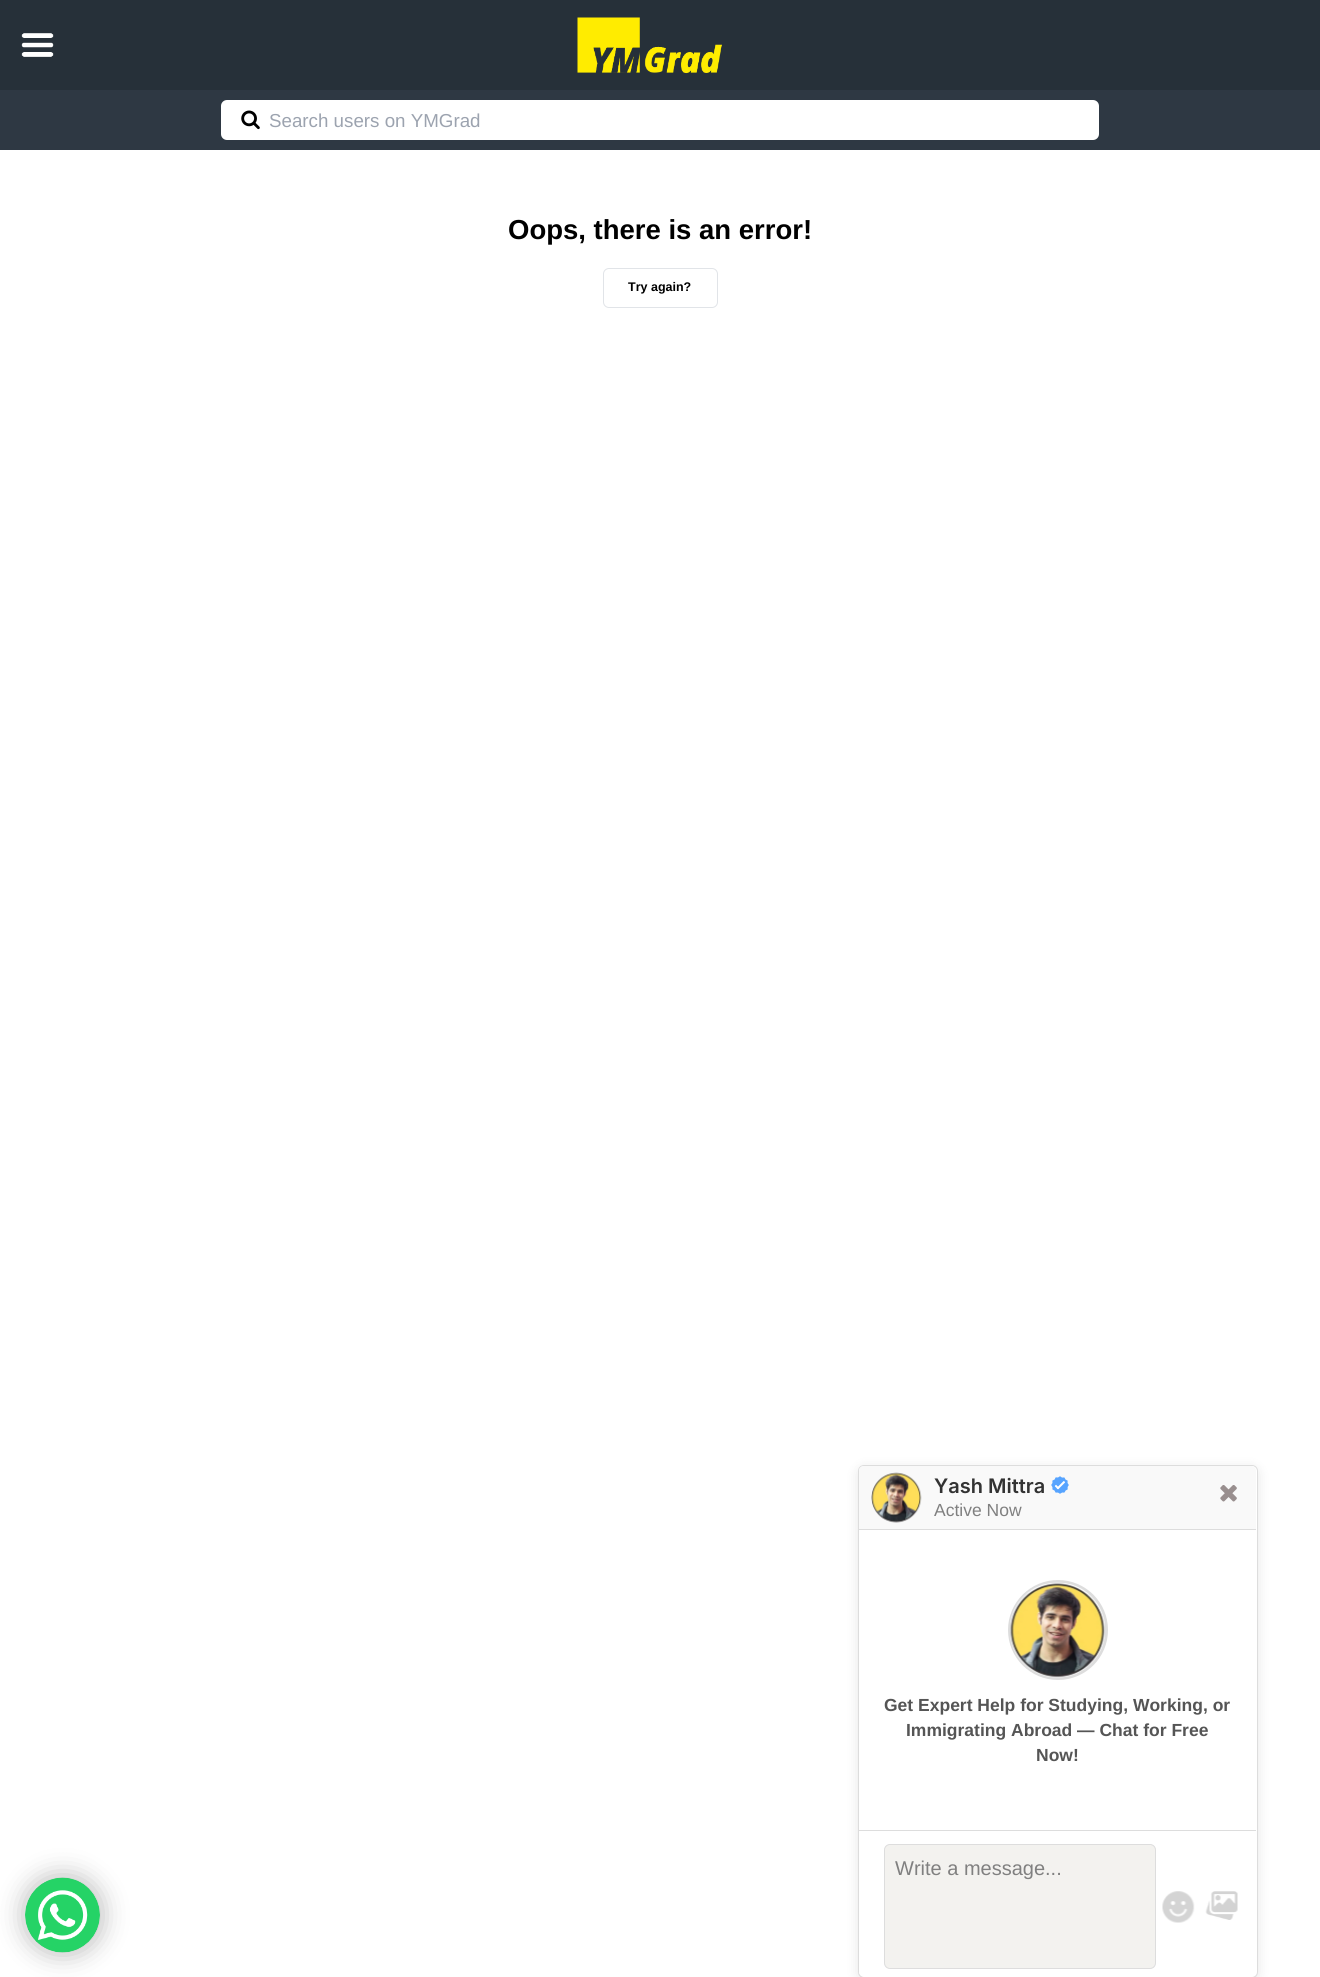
import math
import cairo

surface = cairo.ImageSurface(cairo.FORMAT_RGB24, 1320, 1977)
cr = cairo.Context(surface)
options = cairo.FontOptions()
options.set_hint_metrics(cairo.HINT_METRICS_OFF)
options.set_hint_style(cairo.HINT_STYLE_NONE)
cr.set_font_options(options)
cr.set_miter_limit(4)


def rgb(code):
    cr.set_source_rgb(*(v / 255 for v in bytes.fromhex(code[-6:])))


def rrect(x, y, w, h, r):
    cr.new_sub_path()
    for i, (u, v) in enumerate([(x + w - r, y + h - r), (x + r, y + h - r), (x + r, y + r), (x + w - r, y + r)]):
        cr.arc(u, v, r, i * math.pi / 2, (i + 1) * math.pi / 2)
    cr.close_path()


def soft_shadow(x, y, w, h, r, blur, alpha):
    cr.push_group_with_content(cairo.CONTENT_ALPHA)
    cr.set_operator(cairo.OPERATOR_SOURCE)
    for i in range(15, -16, -2):
        e = blur * i / 6
        if min(w, h) + 2 * e > 0:
            cr.set_source_rgba(0, 0, 0, alpha * math.erfc((i - 1) / 8.5) / 2)
            rrect(x - e, y - e, w + 2 * e, h + 2 * e, max(0, min(r + e + blur * .6, min(w, h) / 2 + e)))
            cr.fill()
    cr.mask(cr.pop_group())


def image(path, x, y, w, h):
    cr.save()
    cr.set_source_surface(cairo.ImageSurface.create_from_png(path), x, y)
    cr.rectangle(x, y, w, h)
    cr.fill()
    cr.restore()


rgb("#ffffff")
cr.paint()
rgb("#263039")
cr.rectangle(0, 0, 1320, 90)
cr.fill()
image("img/1.png", 21, 33, 33, 24)
image("img/2.png", 577, 17, 145, 57)
rgb("#2e3843")
cr.rectangle(0, 90, 1320, 60)
cr.fill()
rgb("#ffffff")
rrect(221, 100, 878, 40, 6)
cr.fill()
image("img/3.png", 241, 110, 19, 20)
rrect(603.5, 268.5, 114, 39, 5.5)
rgb("#e1e4e8")
cr.set_line_width(1)
cr.stroke()
rgb("#000000")
soft_shadow(858, 1468, 400, 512, 6, 6, 0.1)
rgb("#ffffff")
rrect(858.5, 1465.5, 399, 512, 5.5)
cr.fill_preserve()
rgb("#dddddd")
cr.stroke()
rgb("#f9f9f9")
cr.new_path()
cr.move_to(864, 1466)
cr.line_to(1251, 1466)
cr.curve_to(1254, 1466, 1256, 1468, 1256, 1471)
cr.line_to(1256, 1529)
cr.line_to(859, 1529)
cr.line_to(859, 1471)
cr.curve_to(859, 1468, 861, 1466, 864, 1466)
cr.close_path()
cr.fill()
rgb("#dddddd")
cr.rectangle(859, 1529, 397, 1)
cr.fill()
image("img/4.png", 871, 1472, 51, 51)
image("img/5.png", 1051, 1476, 18, 18)
image("img/6.png", 1220, 1485, 17, 17)
cr.arc(1058, 1630, 48.5, 0, 2 * math.pi)
cr.set_line_width(3)
cr.stroke()
image("img/7.png", 1010, 1582, 95, 96)
rgb("#ffffff")
cr.new_path()
cr.move_to(859, 1831)
cr.line_to(1256, 1831)
cr.line_to(1256, 1971)
cr.curve_to(1256, 1974, 1254, 1976, 1251, 1976)
cr.line_to(864, 1976)
cr.curve_to(861, 1976, 859, 1974, 859, 1971)
cr.close_path()
cr.fill()
rgb("#dddddd")
cr.rectangle(859, 1830, 397, 1)
cr.fill()
rgb("#f3f2ef")
rrect(884.5, 1844.5, 271, 124, 5.5)
cr.fill_preserve()
rgb("#dddddd")
cr.set_line_width(1)
cr.stroke()
image("img/8.png", 1162, 1891, 33, 32)
image("img/9.png", 1205, 1891, 33, 29)
rgb("#838383")
soft_shadow(23, 1875, 80, 80, 40, 12.5, 0.52)
image("img/10.png", 25, 1877, 75, 76)
cr.select_font_face("Liberation Sans")
cr.set_font_size(18.75)
rgb("#9ca3af")
cr.move_to(269, 127)
cr.show_text("Search users on YMGrad")
cr.select_font_face("Liberation Sans", cairo.FONT_SLANT_NORMAL, cairo.FONT_WEIGHT_BOLD)
cr.set_font_size(27.5)
rgb("#000000")
cr.move_to(508, 239)
cr.show_text("Oops, there is an error!")
cr.set_font_size(12.5)
cr.move_to(628, 291)
cr.show_text("Try again?")
cr.select_font_face("Inter SemiBold")
cr.set_font_size(20)
rgb("#333333")
cr.move_to(934, 1493)
cr.show_text("Yash Mittra")
cr.select_font_face("Liberation Sans")
cr.set_font_size(17.5)
rgb("#808080")
cr.move_to(934, 1516)
cr.show_text("Active Now")
cr.select_font_face("Liberation Sans", cairo.FONT_SLANT_NORMAL, cairo.FONT_WEIGHT_BOLD)
rgb("#555555")
for x, y, s in [
    (884, 1711, "Get Expert Help for Studying, Working, or"),
    (906, 1736, "Immigrating Abroad — Chat for Free"),
    (1036, 1761, "Now!"),
]:
    cr.move_to(x, y)
    cr.show_text(s)
cr.select_font_face("Liberation Sans")
cr.set_font_size(20)
rgb("#808080")
cr.move_to(895, 1875)
cr.show_text("Write a message...")
surface.write_to_png("page.png")
